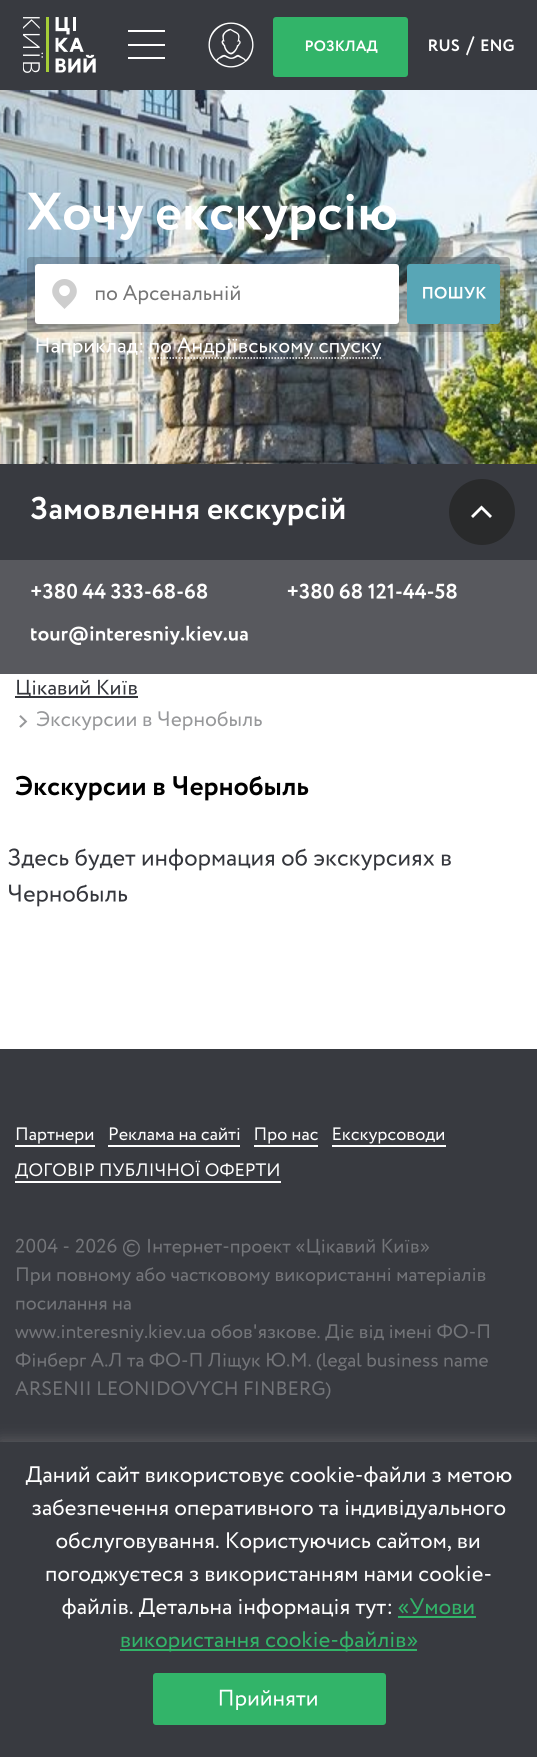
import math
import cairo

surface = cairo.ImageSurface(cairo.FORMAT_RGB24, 537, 1757)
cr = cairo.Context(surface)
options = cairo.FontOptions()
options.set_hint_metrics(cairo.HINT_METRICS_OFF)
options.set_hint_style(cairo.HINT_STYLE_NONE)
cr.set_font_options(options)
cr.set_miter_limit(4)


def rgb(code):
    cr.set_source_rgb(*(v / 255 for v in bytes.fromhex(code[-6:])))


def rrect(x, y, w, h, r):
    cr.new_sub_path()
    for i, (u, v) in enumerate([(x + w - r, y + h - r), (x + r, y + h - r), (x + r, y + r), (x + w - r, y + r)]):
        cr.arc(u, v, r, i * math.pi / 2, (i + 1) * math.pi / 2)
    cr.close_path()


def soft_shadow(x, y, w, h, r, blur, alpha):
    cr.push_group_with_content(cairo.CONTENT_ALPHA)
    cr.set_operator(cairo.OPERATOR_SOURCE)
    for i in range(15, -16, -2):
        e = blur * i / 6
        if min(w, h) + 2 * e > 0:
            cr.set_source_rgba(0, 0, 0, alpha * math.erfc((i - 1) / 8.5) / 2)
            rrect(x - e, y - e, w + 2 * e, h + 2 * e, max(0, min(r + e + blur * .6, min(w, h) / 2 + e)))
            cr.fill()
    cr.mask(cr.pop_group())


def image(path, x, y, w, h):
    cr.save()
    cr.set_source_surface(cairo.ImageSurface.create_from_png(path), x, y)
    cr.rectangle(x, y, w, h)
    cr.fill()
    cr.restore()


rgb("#ffffff")
cr.paint()
rgb("#383a40")
cr.rectangle(0, 0, 537, 90)
cr.fill()
image("img/1.png", 23, 17, 73, 56)
for x, y, w, h, color in [
    (128, 30, 37, 2, "#ffffff"),
    (128, 44, 37, 2, "#ffffff"),
    (128, 57, 37, 2, "#ffffff"),
]:
    rgb(color)
    cr.rectangle(x, y, w, h)
    cr.fill()
image("img/2.png", 208, 22, 46, 46)
rgb("#32b469")
rrect(273, 17, 135, 60, 3)
cr.fill()
image("img/3.png", 305, 40, 73, 13)
image("img/4.png", 429, 39, 31, 13)
rgb("#ffffff")
cr.new_path()
cr.move_to(466, 54.5)
cr.line_to(467.5, 55.5)
cr.line_to(474.5, 37)
cr.line_to(473, 36)
cr.close_path()
cr.fill()
image("img/5.png", 481, 39, 33, 13)
image("img/6.png", 0, 90, 537, 374)
image("img/7.png", 27, 192, 369, 48)
cr.set_source_rgba(0.22, 0.227, 0.251, 0.3)
rrect(27, 257, 483, 75, 3)
cr.fill()
rgb("#ffffff")
rrect(35, 264, 364, 60, 3)
cr.fill()
image("img/8.png", 96, 285, 144, 20)
image("img/9.png", 52, 279, 25, 30)
rgb("#58a6b6")
rrect(407, 264, 93, 60, 3)
cr.fill()
image("img/10.png", 423, 286, 63, 13)
image("img/11.png", 36, 337, 107, 20)
cr.new_path()
cr.move_to(148.5, 358)
cr.line_to(382.5, 358)
rgb("#ffffff")
cr.set_line_width(1.5)
cr.set_dash([1.5, 1.5])
cr.stroke()
image("img/12.png", 150, 337, 232, 20)
rgb("#383a40")
cr.rectangle(0, 464, 537, 96)
cr.fill()
image("img/13.png", 31, 496, 314, 30)
rgb("#292a2b")
cr.arc(482, 512, 33, 0, 2 * math.pi)
cr.fill()
rgb("#ffffff")
cr.set_fill_rule(cairo.FILL_RULE_EVEN_ODD)
cr.new_path()
cr.move_to(481.5, 509.5)
cr.line_to(473, 518)
cr.line_to(471, 516)
cr.line_to(481.5, 505.5)
cr.line_to(492, 516)
cr.line_to(490, 518)
cr.close_path()
cr.fill()
rgb("#58595e")
cr.rectangle(0, 560, 537, 114)
cr.fill()
image("img/14.png", 31, 583, 177, 16)
image("img/15.png", 287, 583, 170, 16)
image("img/16.png", 31, 625, 217, 20)
image("img/17.png", 17, 679, 120, 17)
rgb("#34363c")
cr.rectangle(15, 696, 123, 2)
cr.fill()
image("img/18.png", 19, 715, 9, 13)
image("img/19.png", 36, 711, 226, 20)
image("img/20.png", 15, 775, 294, 26)
image("img/21.png", 8, 848, 443, 23)
image("img/22.png", 9, 884, 119, 23)
rgb("#383a40")
cr.rectangle(0, 1049, 537, 393)
cr.fill()
image("img/23.png", 16, 1127, 78, 17)
rgb("#ffffff")
cr.rectangle(15, 1145, 80, 2)
cr.fill()
image("img/24.png", 109, 1127, 131, 14)
cr.rectangle(108, 1145, 132, 2)
cr.fill()
image("img/25.png", 255, 1127, 63, 17)
cr.rectangle(254, 1145, 64, 2)
cr.fill()
image("img/26.png", 333, 1127, 111, 17)
cr.rectangle(332, 1145, 114, 2)
cr.fill()
image("img/27.png", 15, 1160, 264, 19)
cr.rectangle(15, 1181, 266, 2)
cr.fill()
image("img/28.png", 15, 1238, 54, 15)
image("img/29.png", 75, 1238, 42, 15)
image("img/30.png", 123, 1238, 306, 19)
image("img/31.png", 17, 1267, 469, 18)
image("img/32.png", 16, 1300, 115, 10)
image("img/33.png", 15, 1324, 474, 18)
image("img/34.png", 15, 1352, 473, 19)
image("img/35.png", 15, 1381, 316, 18)
rgb("#acabab")
soft_shadow(0, 1440, 537, 317, 0, 7.5, 0.3)
rgb("#383a40")
cr.rectangle(0, 1442, 537, 315)
cr.fill()
image("img/36.png", 25, 1466, 487, 21)
image("img/37.png", 32, 1499, 474, 21)
image("img/38.png", 56, 1532, 424, 21)
image("img/39.png", 46, 1565, 445, 21)
image("img/40.png", 62, 1598, 329, 21)
image("img/41.png", 398, 1598, 76, 17)
rgb("#32b469")
cr.rectangle(398, 1616, 78, 2)
cr.fill()
cr.rectangle(120, 1649, 297, 2)
cr.fill()
image("img/42.png", 121, 1631, 297, 21)
rrect(153, 1673, 233, 52, 3)
cr.fill()
image("img/43.png", 219, 1689, 98, 21)
surface.write_to_png("page.png")
